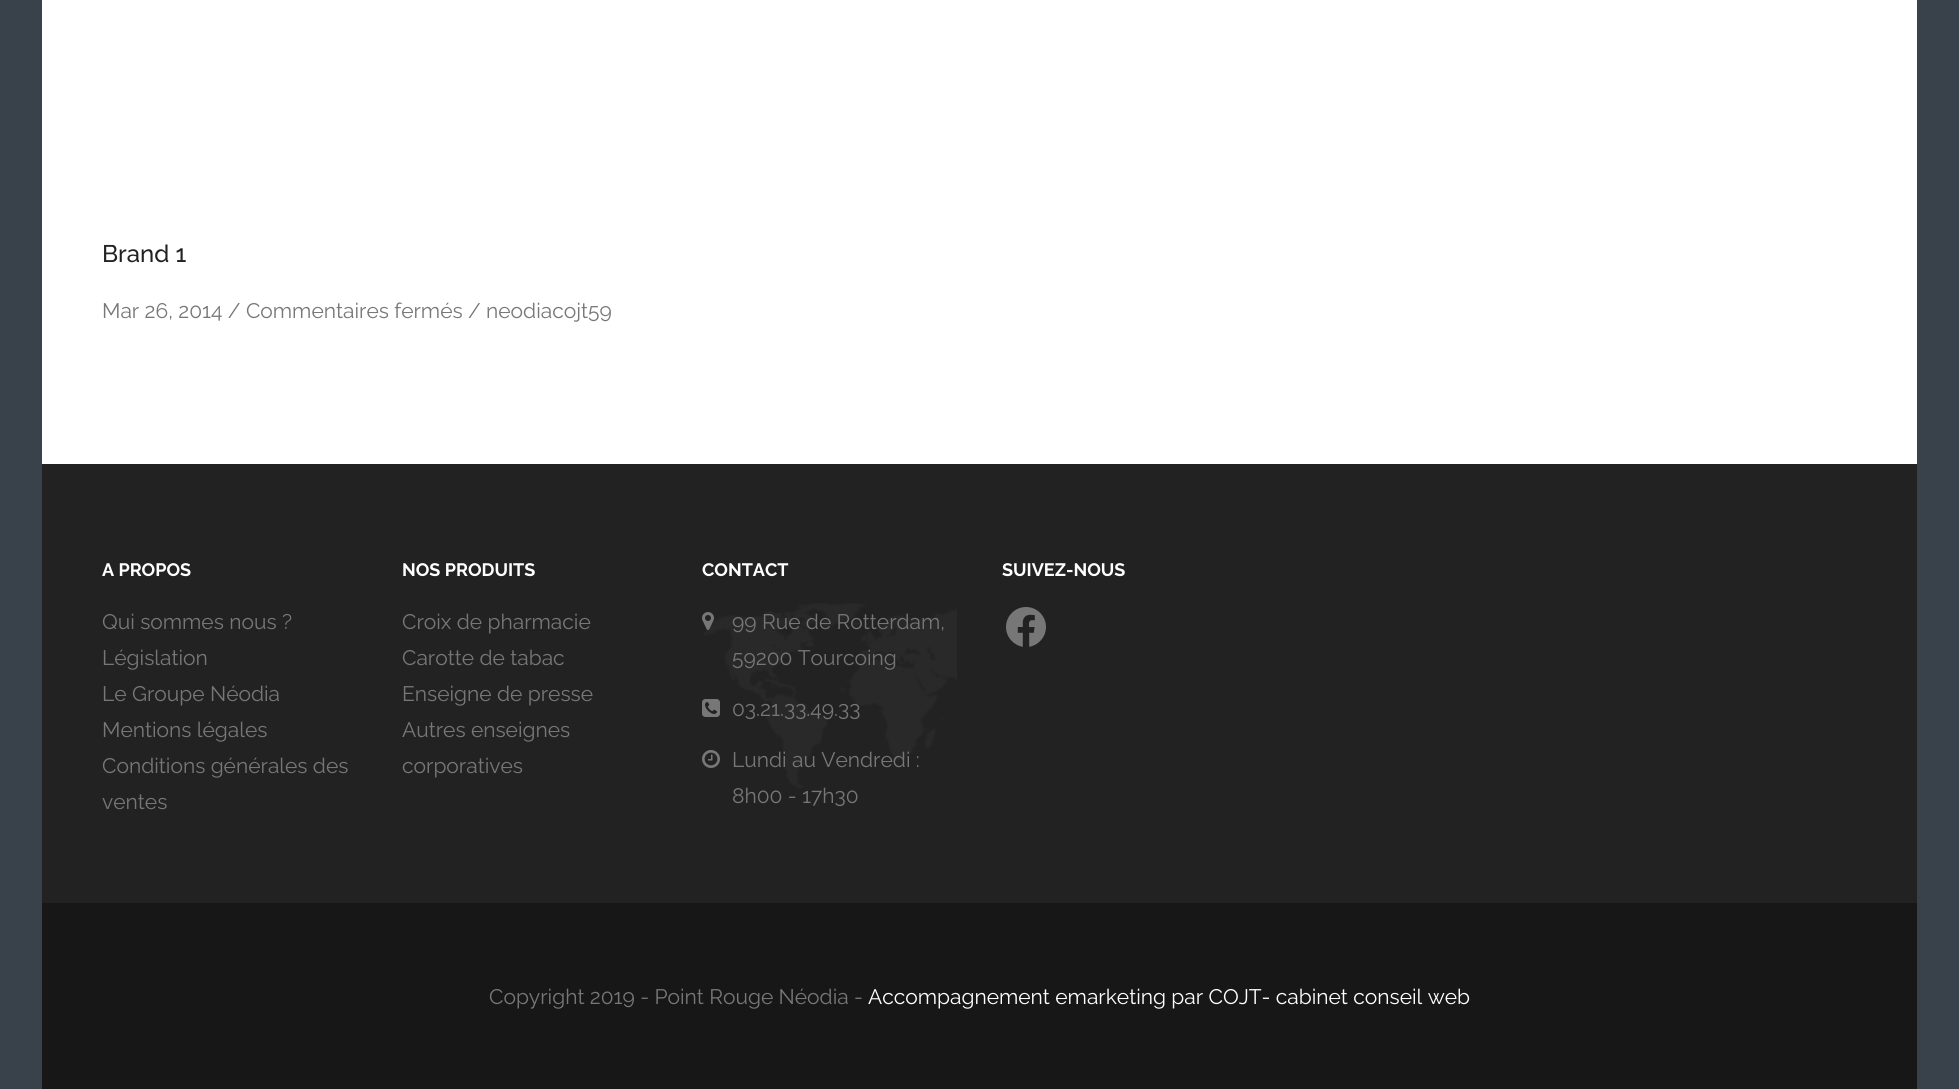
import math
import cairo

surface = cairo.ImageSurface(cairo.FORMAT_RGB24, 1959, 1089)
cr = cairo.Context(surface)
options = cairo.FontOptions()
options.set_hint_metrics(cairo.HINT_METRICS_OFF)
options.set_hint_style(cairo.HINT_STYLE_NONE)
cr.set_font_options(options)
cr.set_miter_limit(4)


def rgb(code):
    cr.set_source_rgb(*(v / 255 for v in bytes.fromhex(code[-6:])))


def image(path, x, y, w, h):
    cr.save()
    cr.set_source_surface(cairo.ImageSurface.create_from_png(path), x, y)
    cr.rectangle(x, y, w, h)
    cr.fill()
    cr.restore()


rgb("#39414a")
cr.paint()
rgb("#ffffff")
cr.rectangle(42, 0, 1875, 464)
cr.fill()
rgb("#222222")
cr.rectangle(42, 464, 1875, 439)
cr.fill()
image("img/1.png", 704, 603, 253, 185)
image("img/2.png", 702, 612, 12, 18)
image("img/3.png", 702, 699, 18, 18)
image("img/4.png", 702, 750, 18, 18)
image("img/5.png", 1006, 607, 40, 40)
rgb("#171717")
cr.rectangle(42, 903, 1875, 186)
cr.fill()
cr.select_font_face("Raleway Medium")
cr.set_font_size(24)
rgb("#222222")
cr.move_to(102, 262)
cr.show_text("Brand 1")
cr.select_font_face("Raleway")
cr.set_font_size(21)
rgb("#777777")
cr.move_to(102, 318)
cr.show_text("Mar 26, 2014 / Commentaires fermés / neodiacojt59")
cr.select_font_face("Raleway", cairo.FONT_SLANT_NORMAL, cairo.FONT_WEIGHT_BOLD)
cr.set_font_size(18)
rgb("#ffffff")
cr.move_to(102, 576)
cr.show_text("A PROPOS")
cr.select_font_face("Raleway")
cr.set_font_size(21)
rgb("#777777")
for x, y, s in [
    (102, 629, "Qui sommes nous ?"),
    (102, 665, "Législation"),
    (102, 701, "Le Groupe Néodia"),
    (102, 737, "Mentions légales"),
    (102, 773, "Conditions générales des"),
    (102, 809, "ventes"),
]:
    cr.move_to(x, y)
    cr.show_text(s)
cr.select_font_face("Raleway", cairo.FONT_SLANT_NORMAL, cairo.FONT_WEIGHT_BOLD)
cr.set_font_size(18)
rgb("#ffffff")
cr.move_to(402, 576)
cr.show_text("NOS PRODUITS")
cr.select_font_face("Raleway")
cr.set_font_size(21)
rgb("#777777")
for x, y, s in [
    (402, 629, "Croix de pharmacie"),
    (402, 665, "Carotte de tabac"),
    (402, 701, "Enseigne de presse"),
    (402, 737, "Autres enseignes"),
    (402, 773, "corporatives"),
]:
    cr.move_to(x, y)
    cr.show_text(s)
cr.select_font_face("Raleway", cairo.FONT_SLANT_NORMAL, cairo.FONT_WEIGHT_BOLD)
cr.set_font_size(18)
rgb("#ffffff")
cr.move_to(702, 576)
cr.show_text("CONTACT")
cr.select_font_face("Raleway")
cr.set_font_size(21)
rgb("#777777")
for x, y, s in [
    (732, 629, "99 Rue de Rotterdam,"),
    (732, 665, "59200 Tourcoing"),
    (732, 716, "03.21.33.49.33"),
    (732, 767, "Lundi au Vendredi :"),
    (732, 803, "8h00 - 17h30"),
]:
    cr.move_to(x, y)
    cr.show_text(s)
cr.select_font_face("Raleway", cairo.FONT_SLANT_NORMAL, cairo.FONT_WEIGHT_BOLD)
cr.set_font_size(18)
rgb("#ffffff")
cr.move_to(1002, 576)
cr.show_text("SUIVEZ-NOUS")
cr.select_font_face("Raleway")
cr.set_font_size(21)
rgb("#777777")
cr.move_to(489, 1004)
cr.show_text("Copyright 2019 - Point Rouge Néodia -")
rgb("#ffffff")
cr.move_to(868, 1004)
cr.show_text("Accompagnement emarketing par COJT- cabinet conseil web")
surface.write_to_png("page.png")
